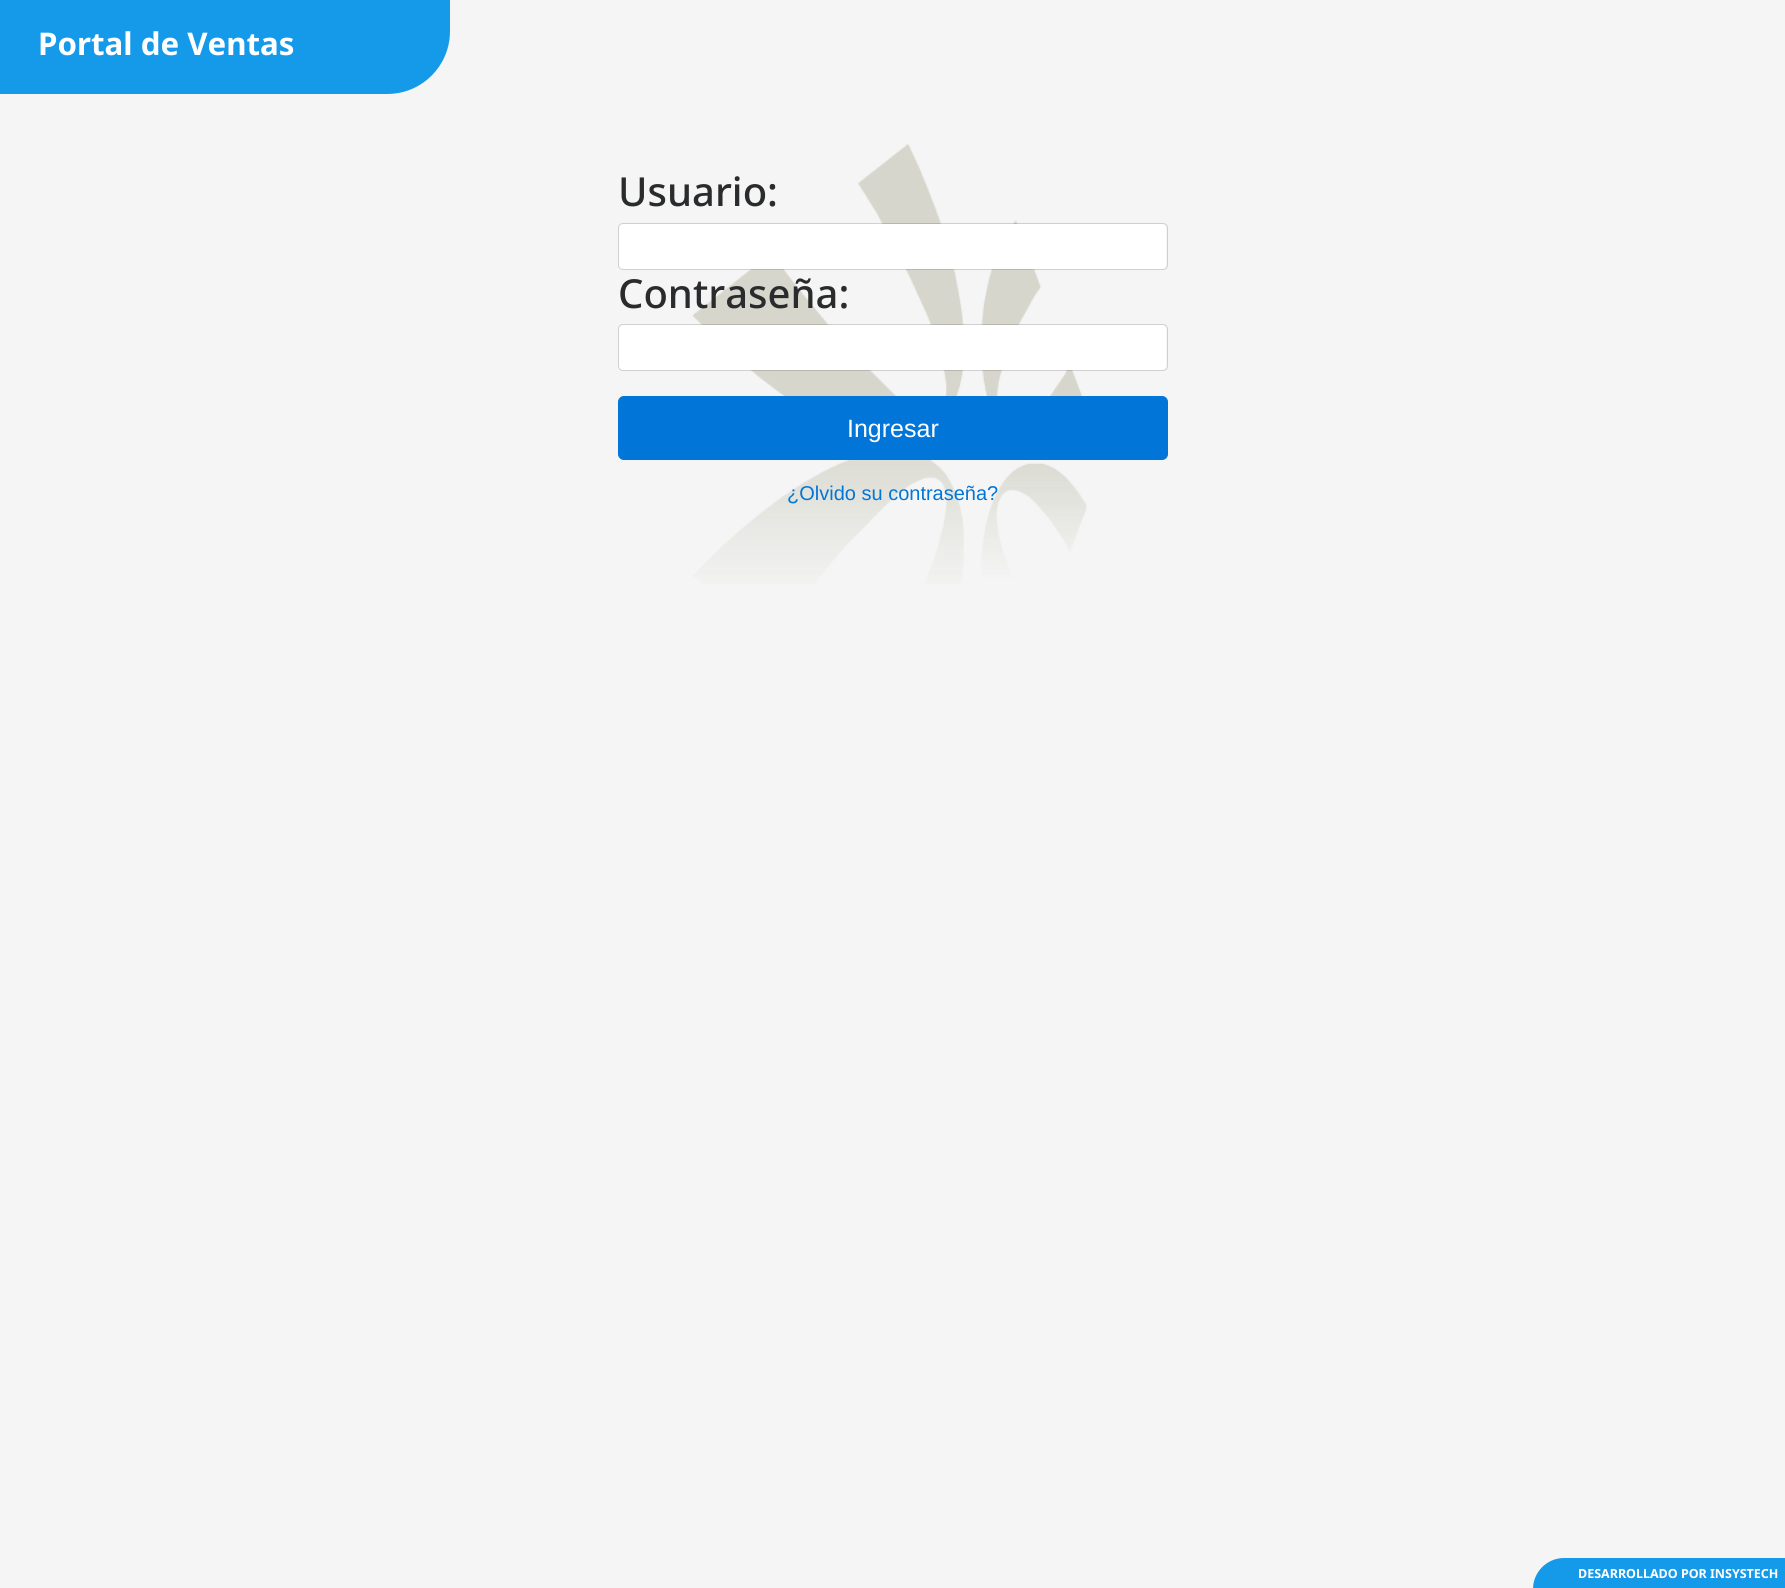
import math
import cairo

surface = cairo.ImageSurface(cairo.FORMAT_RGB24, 1785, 1588)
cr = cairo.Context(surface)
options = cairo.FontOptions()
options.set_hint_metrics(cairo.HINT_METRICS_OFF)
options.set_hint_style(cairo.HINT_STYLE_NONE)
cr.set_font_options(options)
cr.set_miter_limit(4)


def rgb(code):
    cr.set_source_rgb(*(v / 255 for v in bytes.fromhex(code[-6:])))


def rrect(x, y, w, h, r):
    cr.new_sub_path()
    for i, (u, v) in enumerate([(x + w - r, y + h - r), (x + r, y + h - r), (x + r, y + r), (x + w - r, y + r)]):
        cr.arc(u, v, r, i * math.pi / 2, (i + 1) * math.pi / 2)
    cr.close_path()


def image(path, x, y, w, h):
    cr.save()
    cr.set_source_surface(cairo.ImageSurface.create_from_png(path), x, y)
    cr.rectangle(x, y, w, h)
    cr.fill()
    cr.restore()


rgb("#f5f5f5")
cr.paint()
image("img/1.png", 692, 144, 395, 440)
rgb("#159aea")
cr.new_path()
cr.move_to(0, 0)
cr.line_to(450, 0)
cr.line_to(450, 31)
cr.curve_to(450, 66, 422, 94, 387, 94)
cr.line_to(0, 94)
cr.close_path()
cr.fill()
rgb("#ffffff")
rrect(619, 224, 547, 45, 4)
cr.fill()
rrect(618.5, 223.5, 549, 46, 4.5)
cr.set_source_rgba(0, 0, 0, 0.15)
cr.set_line_width(1)
cr.stroke()
rgb("#ffffff")
rrect(619, 325, 547, 45, 4)
cr.fill()
rrect(618.5, 324.5, 549, 46, 4.5)
cr.set_source_rgba(0, 0, 0, 0.15)
cr.stroke()
rgb("#0275d8")
rrect(618.5, 396.5, 549, 63, 5.5)
cr.fill_preserve()
cr.stroke()
rgb("#159aea")
cr.new_path()
cr.move_to(1564, 1558)
cr.line_to(1785, 1558)
cr.line_to(1785, 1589)
cr.line_to(1533, 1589)
cr.curve_to(1533, 1572, 1547, 1558, 1564, 1558)
cr.close_path()
cr.fill()
cr.select_font_face("Noto Sans", cairo.FONT_SLANT_NORMAL, cairo.FONT_WEIGHT_BOLD)
cr.set_font_size(31.25)
rgb("#ffffff")
cr.move_to(38, 55)
cr.show_text("Portal de Ventas")
cr.select_font_face("Noto Sans Medium")
cr.set_font_size(40)
rgb("#292b2c")
cr.move_to(618, 206)
cr.show_text("Usuario:")
cr.move_to(618, 308)
cr.show_text("Contraseña:")
cr.select_font_face("Liberation Sans")
cr.set_font_size(25)
rgb("#ffffff")
cr.move_to(847, 437)
cr.show_text("Ingresar")
cr.set_font_size(20)
rgb("#0275d8")
cr.move_to(787, 500)
cr.show_text("¿Olvido su contraseña?")
cr.select_font_face("Noto Sans", cairo.FONT_SLANT_NORMAL, cairo.FONT_WEIGHT_BOLD)
cr.set_font_size(12.5)
rgb("#ffffff")
cr.move_to(1578, 1578)
cr.show_text("DESARROLLADO POR INSYSTECH")
surface.write_to_png("page.png")
